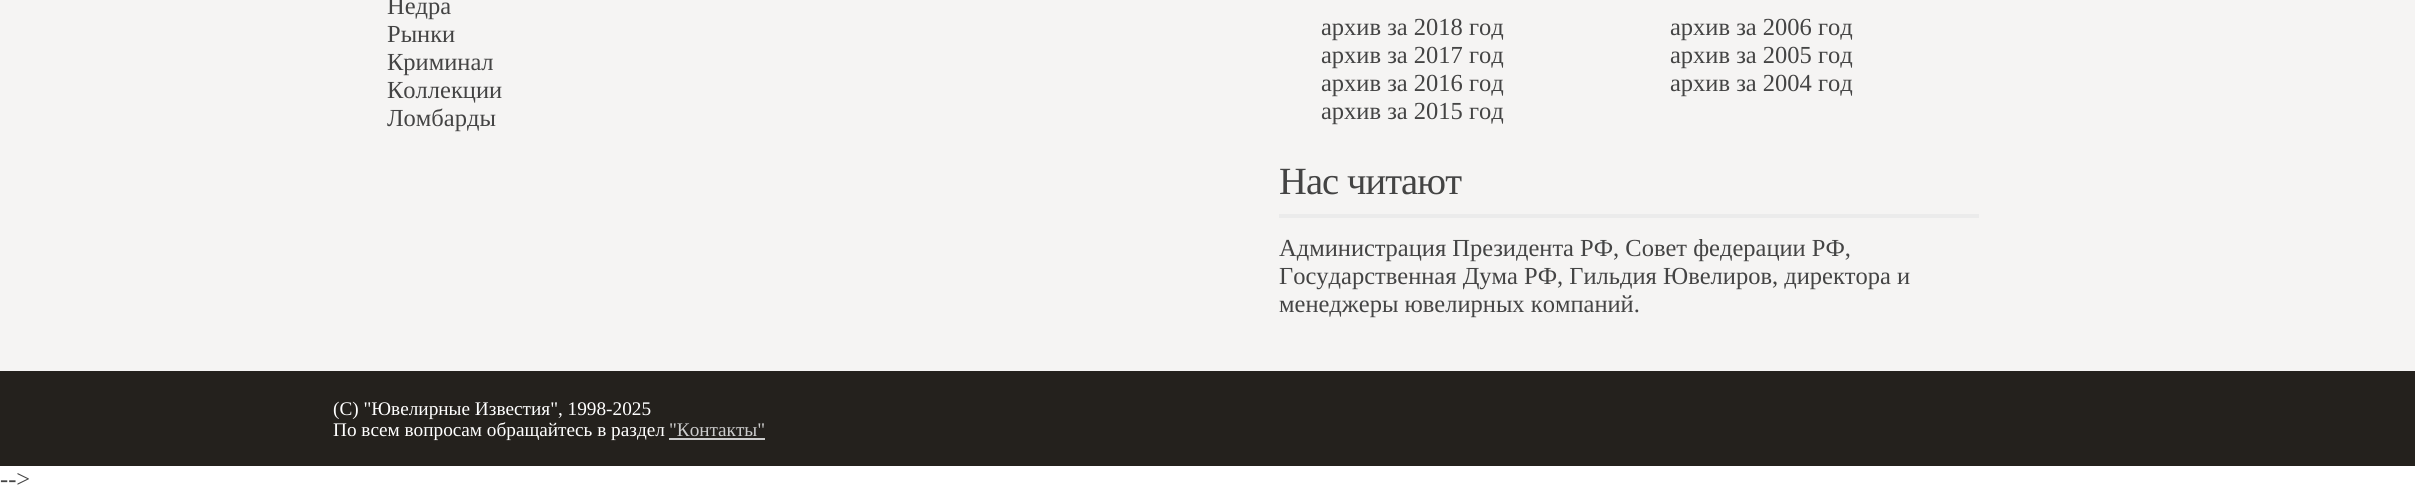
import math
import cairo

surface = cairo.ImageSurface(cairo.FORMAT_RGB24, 2415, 492)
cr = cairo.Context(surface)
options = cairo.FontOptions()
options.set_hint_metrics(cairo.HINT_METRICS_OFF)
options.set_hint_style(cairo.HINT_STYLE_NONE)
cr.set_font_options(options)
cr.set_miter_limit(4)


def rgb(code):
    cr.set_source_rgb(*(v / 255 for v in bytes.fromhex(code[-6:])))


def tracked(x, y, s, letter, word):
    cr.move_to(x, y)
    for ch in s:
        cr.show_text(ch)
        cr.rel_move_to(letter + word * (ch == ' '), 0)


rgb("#ffffff")
cr.paint()
for x, y, w, h, color in [
    (0, 0, 2415, 371, "#f5f4f3"),
    (1279, 214, 700, 4, "#ebebeb"),
    (0, 371, 2415, 95, "#24211d"),
    (669, 438, 96, 2, "#cccccc"),
]:
    rgb(color)
    cr.rectangle(x, y, w, h)
    cr.fill()
cr.select_font_face("Liberation Serif")
cr.set_font_size(24.5)
rgb("#444444")
for x, y, s in [
    (387, 14, "Недра"),
    (387, 42, "Рынки"),
    (387, 70, "Криминал"),
    (387, 98, "Коллекции"),
    (387, 126, "Ломбарды"),
    (1321, 35, "архив за 2018 год"),
    (1321, 63, "архив за 2017 год"),
    (1321, 91, "архив за 2016 год"),
    (1321, 119, "архив за 2015 год"),
    (1670, 35, "архив за 2006 год"),
    (1670, 63, "архив за 2005 год"),
    (1670, 91, "архив за 2004 год"),
]:
    cr.move_to(x, y)
    cr.show_text(s)
cr.set_font_size(38.5)
tracked(1279, 194, "Нас читают", -0.9, 0)
cr.set_font_size(24.5)
for x, y, s in [
    (1279, 256, "Администрация Президента РФ, Совет федерации РФ,"),
    (1279, 284, "Государственная Дума РФ, Гильдия Ювелиров, директора и"),
    (1279, 312, "менеджеры ювелирных компаний."),
]:
    cr.move_to(x, y)
    cr.show_text(s)
cr.set_font_size(19.25)
rgb("#ffffff")
cr.move_to(333, 415)
cr.show_text("(C) \"Ювелирные Известия\", 1998-2025")
cr.move_to(333, 436)
cr.show_text("По всем вопросам обращайтесь в раздел")
rgb("#cccccc")
cr.move_to(669, 436)
cr.show_text("\"Контакты\"")
cr.set_font_size(24.5)
rgb("#444444")
cr.move_to(0, 487)
cr.show_text("-->")
surface.write_to_png("page.png")
